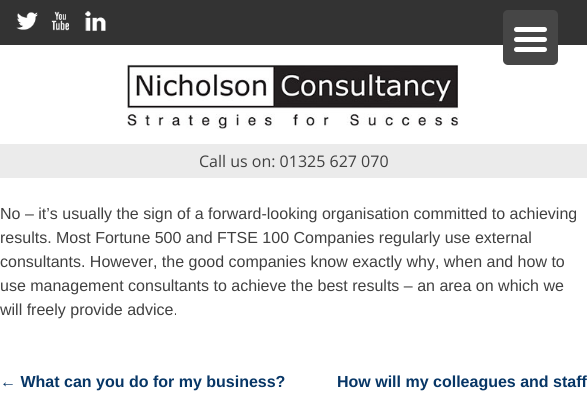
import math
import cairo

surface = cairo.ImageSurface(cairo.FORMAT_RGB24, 587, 393)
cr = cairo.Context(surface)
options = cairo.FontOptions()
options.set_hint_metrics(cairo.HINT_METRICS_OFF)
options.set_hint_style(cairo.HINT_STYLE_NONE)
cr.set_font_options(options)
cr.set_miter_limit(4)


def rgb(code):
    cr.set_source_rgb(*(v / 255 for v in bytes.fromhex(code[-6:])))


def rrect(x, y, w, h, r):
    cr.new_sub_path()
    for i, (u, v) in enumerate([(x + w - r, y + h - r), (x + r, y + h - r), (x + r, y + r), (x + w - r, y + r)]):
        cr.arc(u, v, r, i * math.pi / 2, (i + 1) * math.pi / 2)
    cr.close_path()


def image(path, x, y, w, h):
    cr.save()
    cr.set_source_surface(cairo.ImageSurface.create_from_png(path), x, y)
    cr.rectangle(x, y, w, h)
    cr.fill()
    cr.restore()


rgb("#ffffff")
cr.paint()
rgb("#333333")
cr.rectangle(0, 0, 587, 45)
cr.fill()
rgb("#464646")
rrect(503, 10, 55, 55, 5)
cr.fill()
rgb("#ffffff")
rrect(514, 37, 33, 5, 2.5)
cr.fill()
rrect(514, 27, 33, 5, 2.5)
cr.fill()
rrect(514, 47, 33, 5, 2.5)
cr.fill()
image("img/1.png", 16, 12, 22, 18)
image("img/2.png", 51, 11, 18, 20)
image("img/3.png", 85, 11, 21, 20)
image("img/4.png", 127, 64, 332, 65)
rgb("#ebebeb")
cr.rectangle(0, 144, 587, 34)
cr.fill()
cr.select_font_face("Open Sans")
cr.set_font_size(16)
rgb("#404040")
cr.move_to(199, 167)
cr.show_text("Call us on: 01325 627 070")
cr.select_font_face("Liberation Sans")
for x, y, s in [
    (0, 219, "No – it’s usually the sign of a forward-looking organisation committed to achieving"),
    (0, 243, "results. Most Fortune 500 and FTSE 100 Companies regularly use external"),
    (0, 267, "consultants. However, the good companies know exactly why, when and how to"),
    (0, 291, "use management consultants to achieve the best results – an area on which we"),
    (0, 315, "will freely provide advice."),
]:
    cr.move_to(x, y)
    cr.show_text(s)
cr.select_font_face("Liberation Sans", cairo.FONT_SLANT_NORMAL, cairo.FONT_WEIGHT_BOLD)
rgb("#073666")
cr.move_to(0, 387)
cr.show_text("← What can you do for my business?")
cr.move_to(337, 387)
cr.show_text("How will my colleagues and staff")
surface.write_to_png("page.png")
